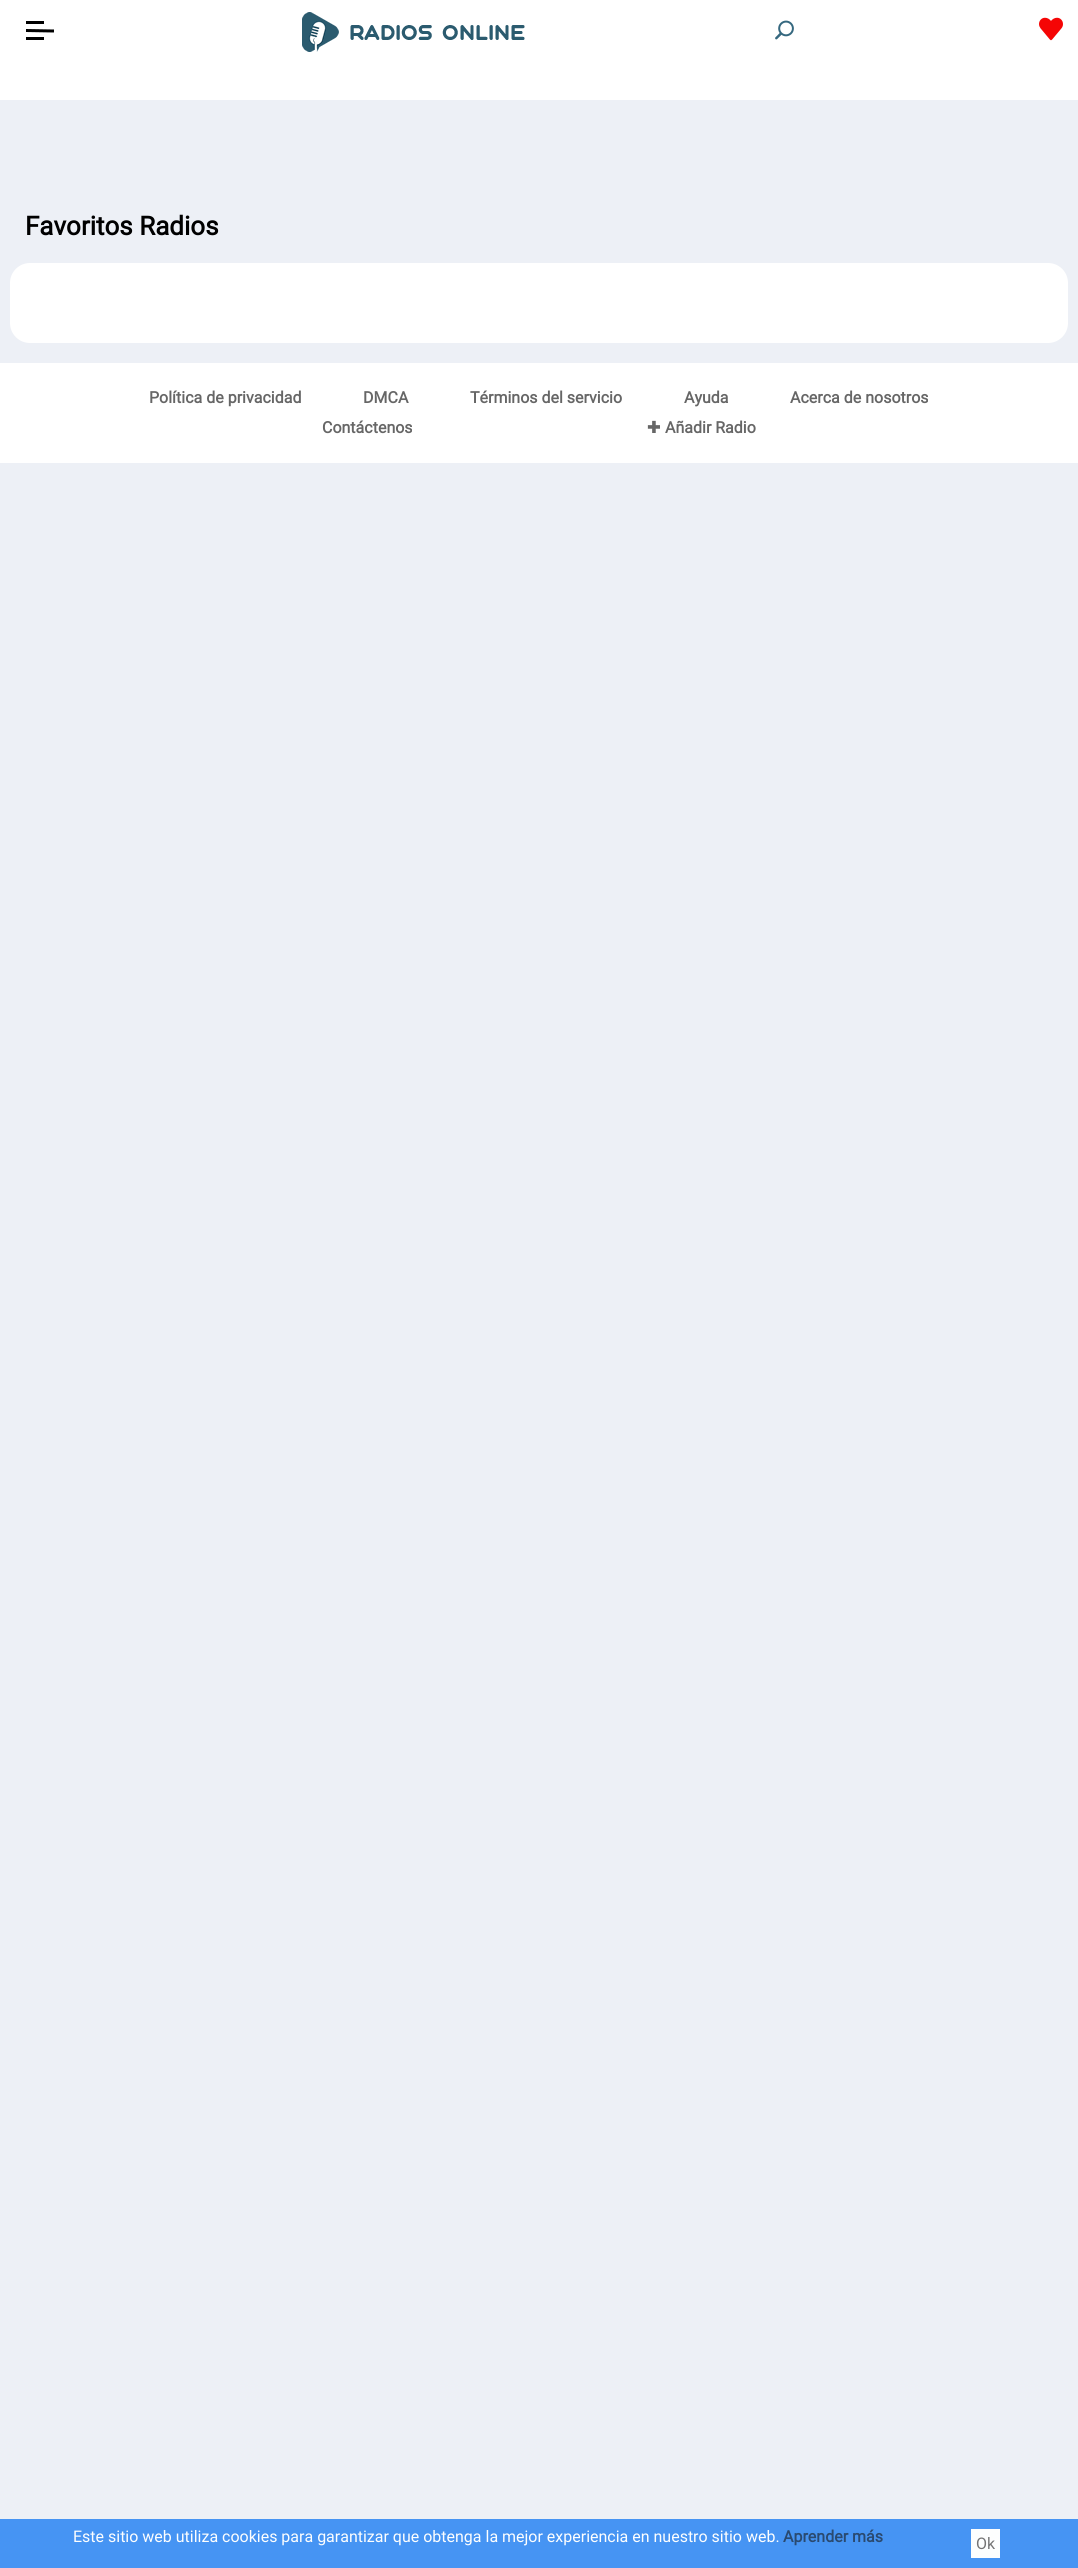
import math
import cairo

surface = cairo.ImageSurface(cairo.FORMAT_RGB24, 1078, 2568)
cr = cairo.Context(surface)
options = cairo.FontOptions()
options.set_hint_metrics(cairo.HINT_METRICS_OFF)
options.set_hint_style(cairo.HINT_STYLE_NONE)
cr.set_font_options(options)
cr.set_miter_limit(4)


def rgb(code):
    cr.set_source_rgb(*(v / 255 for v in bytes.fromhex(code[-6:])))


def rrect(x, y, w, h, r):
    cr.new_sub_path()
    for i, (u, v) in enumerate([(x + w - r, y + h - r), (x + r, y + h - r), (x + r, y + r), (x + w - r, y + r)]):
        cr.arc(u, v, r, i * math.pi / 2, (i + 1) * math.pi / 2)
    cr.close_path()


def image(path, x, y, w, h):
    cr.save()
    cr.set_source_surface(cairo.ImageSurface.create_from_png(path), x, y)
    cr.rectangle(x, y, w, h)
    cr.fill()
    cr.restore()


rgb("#edf0f6")
cr.paint()
rgb("#ffffff")
cr.rectangle(0, 0, 1078, 100)
cr.fill()
rgb("#000000")
cr.rectangle(26, 21, 18, 3)
cr.fill()
cr.new_path()
cr.move_to(26, 29)
cr.line_to(54, 29.5)
cr.line_to(54, 32.5)
cr.line_to(26, 32)
cr.close_path()
cr.fill()
cr.rectangle(26, 37, 18, 3)
cr.fill()
image("img/1.png", 302, 12, 223, 40)
image("img/2.png", 775, 20, 19, 20)
image("img/3.png", 1039, 17, 24, 24)
rgb("#ffffff")
rrect(10, 263, 1058, 80, 20)
cr.fill()
for x, y, w, h, color in [
    (0, 363, 1078, 100, "#ffffff"),
    (0, 2519, 1078, 49, "#4694f3"),
    (971, 2529, 29, 29, "#fdfefe"),
]:
    rgb(color)
    cr.rectangle(x, y, w, h)
    cr.fill()
cr.select_font_face("Roboto", cairo.FONT_SLANT_NORMAL, cairo.FONT_WEIGHT_BOLD)
cr.set_font_size(26)
rgb("#000000")
cr.move_to(25, 235)
cr.show_text("Favoritos Radios")
cr.set_font_size(16)
rgb("#666666")
for x, y, s in [
    (149, 403, "Política de privacidad"),
    (363, 403, "DMCA"),
    (470, 403, "Términos del servicio"),
    (684, 403, "Ayuda"),
    (790, 403, "Acerca de nosotros"),
    (322, 433, "Contáctenos"),
]:
    cr.move_to(x, y)
    cr.show_text(s)
cr.select_font_face("DejaVu Sans", cairo.FONT_SLANT_NORMAL, cairo.FONT_WEIGHT_BOLD)
cr.move_to(647, 433)
cr.show_text("✚")
cr.select_font_face("Roboto", cairo.FONT_SLANT_NORMAL, cairo.FONT_WEIGHT_BOLD)
cr.move_to(665, 433)
cr.show_text("Añadir Radio")
cr.select_font_face("Roboto")
rgb("#fdfefe")
cr.move_to(73, 2542)
cr.show_text("Este sitio web utiliza cookies para garantizar que obtenga la mejor experiencia en nuestro sitio web.")
cr.select_font_face("Roboto", cairo.FONT_SLANT_NORMAL, cairo.FONT_WEIGHT_BOLD)
rgb("#2a4a70")
cr.move_to(783, 2542)
cr.show_text("Aprender más")
cr.select_font_face("Roboto")
rgb("#747475")
cr.move_to(976, 2549)
cr.show_text("Ok")
surface.write_to_png("page.png")
